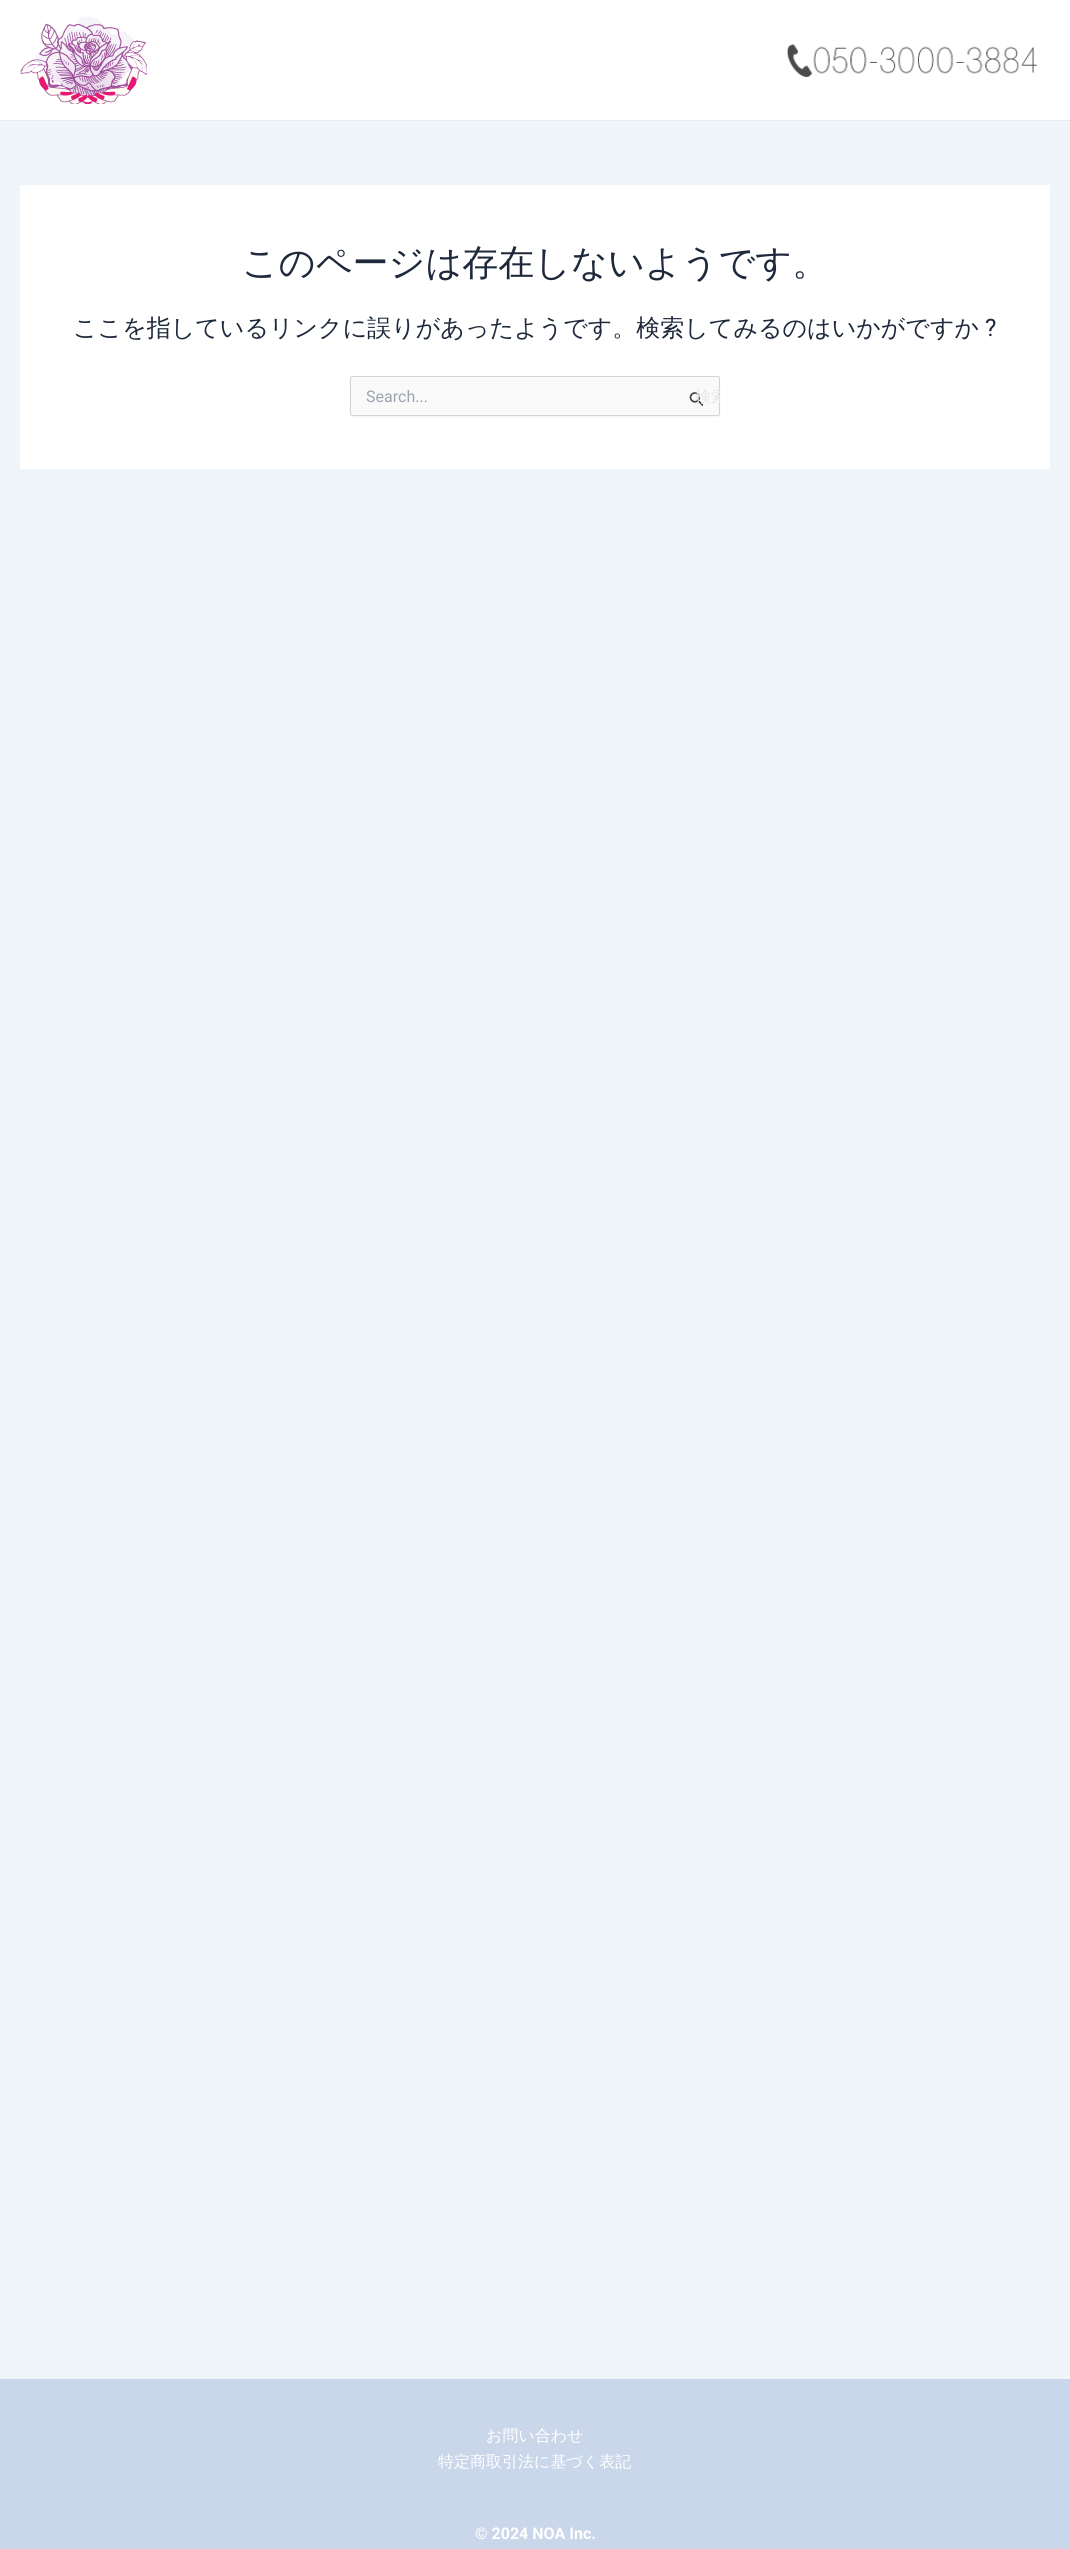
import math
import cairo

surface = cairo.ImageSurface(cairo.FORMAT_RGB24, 1070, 2549)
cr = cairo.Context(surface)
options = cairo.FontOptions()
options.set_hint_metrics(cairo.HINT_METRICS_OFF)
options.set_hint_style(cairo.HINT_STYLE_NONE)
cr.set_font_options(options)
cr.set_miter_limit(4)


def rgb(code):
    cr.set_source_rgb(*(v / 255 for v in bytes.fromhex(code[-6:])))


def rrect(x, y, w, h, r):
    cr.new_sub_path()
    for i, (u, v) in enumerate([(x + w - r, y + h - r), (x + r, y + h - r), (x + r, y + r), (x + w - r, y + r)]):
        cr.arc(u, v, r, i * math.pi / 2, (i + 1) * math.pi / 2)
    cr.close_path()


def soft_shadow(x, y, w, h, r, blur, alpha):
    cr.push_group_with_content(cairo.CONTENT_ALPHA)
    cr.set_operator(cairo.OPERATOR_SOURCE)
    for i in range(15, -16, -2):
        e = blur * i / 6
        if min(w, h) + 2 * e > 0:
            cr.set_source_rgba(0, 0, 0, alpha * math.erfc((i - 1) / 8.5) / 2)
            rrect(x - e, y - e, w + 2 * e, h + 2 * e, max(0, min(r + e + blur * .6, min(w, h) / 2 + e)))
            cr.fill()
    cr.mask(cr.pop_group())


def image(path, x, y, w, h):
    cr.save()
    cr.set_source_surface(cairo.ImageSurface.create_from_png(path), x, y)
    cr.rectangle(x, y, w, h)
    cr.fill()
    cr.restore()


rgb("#f0f5fa")
cr.paint()
rgb("#ffffff")
cr.rectangle(0, 0, 1070, 120)
cr.fill()
rgb("#eaeaea")
cr.rectangle(0, 120, 1070, 1)
cr.fill()
image("img/1.png", 20, 16, 127, 88)
image("img/2.png", 787, 44, 251, 33)
rgb("#ffffff")
cr.rectangle(20, 185, 1030, 284)
cr.fill()
rgb("#000000")
soft_shadow(350, 377, 370, 40, 2, 1, 0.05)
rgb("#fafafa")
rrect(350.5, 376.5, 369, 39, 1.5)
cr.fill_preserve()
rgb("#d1d5db")
cr.set_line_width(1)
cr.stroke()
image("img/3.png", 689, 392, 14, 15)
rgb("#cad6e9")
cr.rectangle(0, 2379, 1070, 140)
cr.fill()
cr.rectangle(0, 2519, 1070, 30)
cr.fill()
cr.select_font_face("WenQuanYi Zen Hei Medium")
cr.set_font_size(36)
rgb("#1e293b")
cr.move_to(242, 275)
cr.show_text("このページは存在しないようです。")
cr.set_font_size(24)
cr.move_to(73, 336)
cr.show_text("ここを指しているリンクに誤りがあったようです。検索してみるのはいかがですか")
cr.select_font_face("Roboto")
cr.move_to(985, 336)
cr.show_text("?")
cr.set_font_size(16)
rgb("#9ca3af")
cr.move_to(366, 402)
cr.show_text("Search...")
cr.save()
rrect(675, 376, 45, 42, 2)
cr.clip()
cr.select_font_face("WenQuanYi Zen Hei Medium")
rgb("#e7e7e8")
cr.move_to(695, 402)
cr.show_text("検索")
cr.restore()
cr.select_font_face("WenQuanYi Zen Hei Medium")
rgb("#ffffff")
cr.move_to(486, 2441)
cr.show_text("お問い合わせ")
cr.move_to(438, 2467)
cr.show_text("特定商取引法に基づく表記")
cr.select_font_face("Roboto", cairo.FONT_SLANT_NORMAL, cairo.FONT_WEIGHT_BOLD)
cr.move_to(475, 2539)
cr.show_text("© 2024 NOA Inc.")
surface.write_to_png("page.png")
